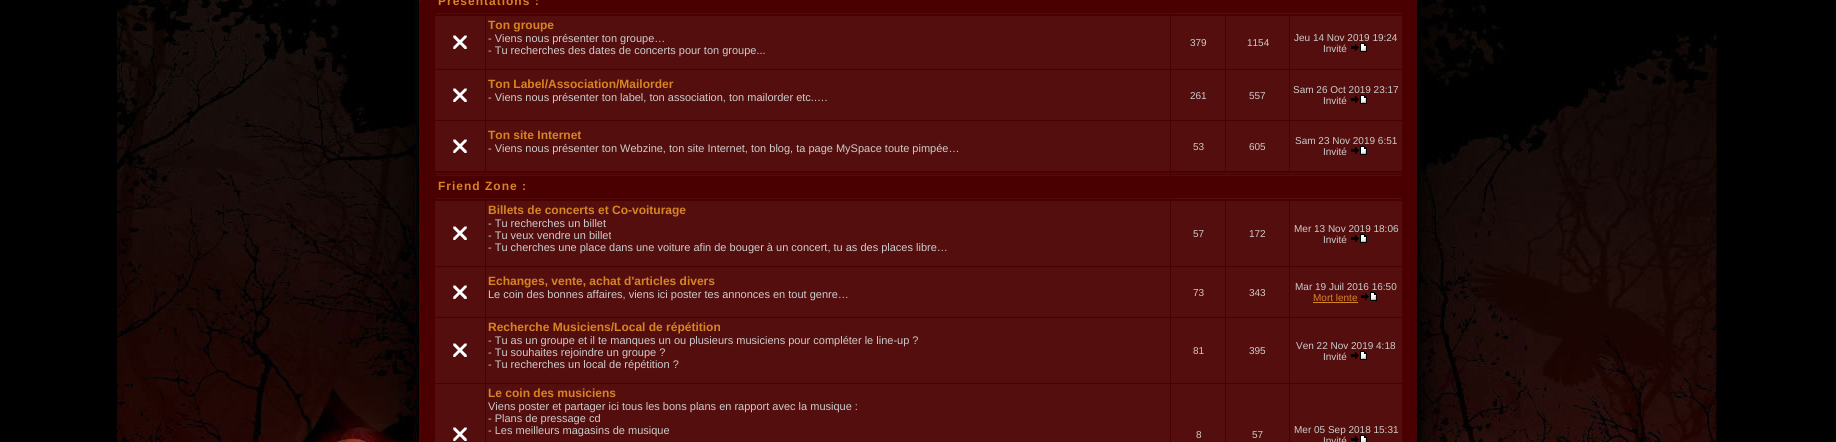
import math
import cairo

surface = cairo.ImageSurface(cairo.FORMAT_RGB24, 1836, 442)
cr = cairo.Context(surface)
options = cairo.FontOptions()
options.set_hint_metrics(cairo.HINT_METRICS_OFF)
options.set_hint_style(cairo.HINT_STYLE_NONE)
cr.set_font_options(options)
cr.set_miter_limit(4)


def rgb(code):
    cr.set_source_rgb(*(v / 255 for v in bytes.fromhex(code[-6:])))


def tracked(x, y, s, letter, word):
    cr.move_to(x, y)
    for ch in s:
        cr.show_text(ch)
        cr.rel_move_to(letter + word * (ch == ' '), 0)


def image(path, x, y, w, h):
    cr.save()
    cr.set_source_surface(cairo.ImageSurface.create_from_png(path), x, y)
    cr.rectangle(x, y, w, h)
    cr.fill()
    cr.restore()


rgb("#000000")
cr.paint()
image("img/1.png", 117, 0, 1600, 442)
rgb("#4a0000")
cr.rectangle(1413, 0, 3, 442)
cr.fill()
image("img/2.png", 436, 0, 734, 15)
rgb("#550d0e")
cr.rectangle(1171, 13, 231, 1)
cr.fill()
rgb("#540e0e")
cr.rectangle(435, 16, 50, 53)
cr.fill()
image("img/3.png", 453, 35, 14, 14)
for x, y, w, h, color in [
    (486, 16, 684, 53, "#540e0e"),
    (1171, 16, 54, 53, "#540e0e"),
    (1226, 16, 63, 53, "#540e0e"),
    (1290, 16, 112, 53, "#540e0e"),
]:
    rgb(color)
    cr.rectangle(x, y, w, h)
    cr.fill()
image("img/4.png", 1351, 43, 16, 9)
cr.rectangle(435, 70, 50, 50)
cr.fill()
image("img/3.png", 453, 88, 14, 14)
for x, y, w, h, color in [
    (486, 70, 684, 50, "#540e0e"),
    (1171, 70, 54, 50, "#540e0e"),
    (1226, 70, 63, 50, "#540e0e"),
    (1290, 70, 112, 50, "#540e0e"),
]:
    rgb(color)
    cr.rectangle(x, y, w, h)
    cr.fill()
image("img/4.png", 1351, 95, 16, 9)
cr.rectangle(435, 121, 50, 50)
cr.fill()
image("img/3.png", 453, 139, 14, 14)
for x, y, w, h, color in [
    (486, 121, 684, 50, "#540e0e"),
    (1171, 121, 54, 50, "#540e0e"),
    (1226, 121, 63, 50, "#540e0e"),
    (1290, 121, 112, 50, "#540e0e"),
]:
    rgb(color)
    cr.rectangle(x, y, w, h)
    cr.fill()
image("img/4.png", 1351, 146, 16, 9)
image("img/5.png", 436, 172, 734, 28)
image("img/6.png", 1171, 173, 231, 26)
cr.rectangle(435, 201, 50, 65)
cr.fill()
image("img/3.png", 453, 226, 14, 14)
for x, y, w, h, color in [
    (486, 201, 684, 65, "#540e0e"),
    (1171, 201, 54, 65, "#540e0e"),
    (1226, 201, 63, 65, "#540e0e"),
    (1290, 201, 112, 65, "#540e0e"),
]:
    rgb(color)
    cr.rectangle(x, y, w, h)
    cr.fill()
image("img/4.png", 1351, 234, 16, 9)
cr.rectangle(435, 267, 50, 50)
cr.fill()
image("img/3.png", 453, 285, 14, 14)
for x, y, w, h, color in [
    (486, 267, 684, 50, "#540e0e"),
    (1171, 267, 54, 50, "#540e0e"),
    (1226, 267, 63, 50, "#540e0e"),
    (1290, 267, 112, 50, "#540e0e"),
    (1313, 302, 45, 1, "#d78523"),
]:
    rgb(color)
    cr.rectangle(x, y, w, h)
    cr.fill()
image("img/4.png", 1361, 292, 16, 9)
rgb("#540e0e")
cr.rectangle(435, 318, 50, 65)
cr.fill()
image("img/3.png", 453, 343, 14, 14)
for x, y, w, h, color in [
    (486, 318, 684, 65, "#540e0e"),
    (1171, 318, 54, 65, "#540e0e"),
    (1226, 318, 63, 65, "#540e0e"),
    (1290, 318, 112, 65, "#540e0e"),
]:
    rgb(color)
    cr.rectangle(x, y, w, h)
    cr.fill()
image("img/4.png", 1351, 351, 16, 9)
cr.rectangle(435, 384, 50, 58)
cr.fill()
image("img/3.png", 453, 427, 14, 14)
for x, y, w, h, color in [
    (486, 384, 684, 58, "#540e0e"),
    (1171, 384, 54, 58, "#540e0e"),
    (1226, 384, 63, 58, "#540e0e"),
    (1290, 384, 112, 58, "#540e0e"),
]:
    rgb(color)
    cr.rectangle(x, y, w, h)
    cr.fill()
cr.select_font_face("Liberation Sans", cairo.FONT_SLANT_NORMAL, cairo.FONT_WEIGHT_BOLD)
cr.set_font_size(12)
rgb("#d78523")
tracked(438, 5, "Présentations :", 1, 0)
cr.move_to(488, 29)
cr.show_text("Ton groupe")
cr.select_font_face("Liberation Sans")
cr.set_font_size(11)
rgb("#cccccc")
cr.move_to(488, 42)
cr.show_text("- Viens nous présenter ton groupe…")
cr.move_to(488, 54)
cr.show_text("- Tu recherches des dates de concerts pour ton groupe...")
cr.set_font_size(10)
for x, y, s in [
    (1190, 46, "379"),
    (1247, 46, "1154"),
    (1294, 41, "Jeu 14 Nov 2019 19:24"),
    (1323, 52, "Invité"),
]:
    cr.move_to(x, y)
    cr.show_text(s)
cr.select_font_face("Liberation Sans", cairo.FONT_SLANT_NORMAL, cairo.FONT_WEIGHT_BOLD)
cr.set_font_size(12)
rgb("#d78523")
cr.move_to(488, 88)
cr.show_text("Ton Label/Association/Mailorder")
cr.select_font_face("Liberation Sans")
cr.set_font_size(11)
rgb("#cccccc")
cr.move_to(488, 101)
cr.show_text("- Viens nous présenter ton label, ton association, ton mailorder etc..…")
cr.set_font_size(10)
for x, y, s in [
    (1190, 99, "261"),
    (1249, 99, "557"),
    (1293, 93, "Sam 26 Oct 2019 23:17"),
    (1323, 104, "Invité"),
]:
    cr.move_to(x, y)
    cr.show_text(s)
cr.select_font_face("Liberation Sans", cairo.FONT_SLANT_NORMAL, cairo.FONT_WEIGHT_BOLD)
cr.set_font_size(12)
rgb("#d78523")
cr.move_to(488, 139)
cr.show_text("Ton site Internet")
cr.select_font_face("Liberation Sans")
cr.set_font_size(11)
rgb("#cccccc")
cr.move_to(488, 152)
cr.show_text("- Viens nous présenter ton Webzine, ton site Internet, ton blog, ta page MySpace toute pimpée…")
cr.set_font_size(10)
for x, y, s in [
    (1193, 150, "53"),
    (1249, 150, "605"),
    (1295, 144, "Sam 23 Nov 2019 6:51"),
    (1323, 155, "Invité"),
]:
    cr.move_to(x, y)
    cr.show_text(s)
cr.select_font_face("Liberation Sans", cairo.FONT_SLANT_NORMAL, cairo.FONT_WEIGHT_BOLD)
cr.set_font_size(12)
rgb("#d78523")
tracked(438, 190, "Friend Zone :", 1, 0)
cr.move_to(488, 214)
cr.show_text("Billets de concerts et Co-voiturage")
cr.select_font_face("Liberation Sans")
cr.set_font_size(11)
rgb("#cccccc")
for x, y, s in [
    (488, 227, "- Tu recherches un billet"),
    (488, 239, "- Tu veux vendre un billet"),
    (488, 251, "- Tu cherches une place dans une voiture afin de bouger à un concert, tu as des places libre…"),
]:
    cr.move_to(x, y)
    cr.show_text(s)
cr.set_font_size(10)
for x, y, s in [
    (1193, 237, "57"),
    (1249, 237, "172"),
    (1294, 232, "Mer 13 Nov 2019 18:06"),
    (1323, 243, "Invité"),
]:
    cr.move_to(x, y)
    cr.show_text(s)
cr.select_font_face("Liberation Sans", cairo.FONT_SLANT_NORMAL, cairo.FONT_WEIGHT_BOLD)
cr.set_font_size(12)
rgb("#d78523")
cr.move_to(488, 285)
cr.show_text("Echanges, vente, achat d'articles divers")
cr.select_font_face("Liberation Sans")
cr.set_font_size(11)
rgb("#cccccc")
cr.move_to(488, 298)
cr.show_text("Le coin des bonnes affaires, viens ici poster tes annonces en tout genre…")
cr.set_font_size(10)
for x, y, s in [
    (1193, 296, "73"),
    (1249, 296, "343"),
    (1295, 290, "Mar 19 Juil 2016 16:50"),
]:
    cr.move_to(x, y)
    cr.show_text(s)
rgb("#d78523")
cr.move_to(1313, 301)
cr.show_text("Mort lente")
cr.select_font_face("Liberation Sans", cairo.FONT_SLANT_NORMAL, cairo.FONT_WEIGHT_BOLD)
cr.set_font_size(12)
cr.move_to(488, 331)
cr.show_text("Recherche Musiciens/Local de répétition")
cr.select_font_face("Liberation Sans")
cr.set_font_size(11)
rgb("#cccccc")
for x, y, s in [
    (488, 344, "- Tu as un groupe et il te manques un ou plusieurs musiciens pour compléter le line-up ?"),
    (488, 356, "- Tu souhaites rejoindre un groupe ?"),
    (488, 368, "- Tu recherches un local de répétition ?"),
]:
    cr.move_to(x, y)
    cr.show_text(s)
cr.set_font_size(10)
for x, y, s in [
    (1193, 354, "81"),
    (1249, 354, "395"),
    (1296, 349, "Ven 22 Nov 2019 4:18"),
    (1323, 360, "Invité"),
]:
    cr.move_to(x, y)
    cr.show_text(s)
cr.select_font_face("Liberation Sans", cairo.FONT_SLANT_NORMAL, cairo.FONT_WEIGHT_BOLD)
cr.set_font_size(12)
rgb("#d78523")
cr.move_to(488, 397)
cr.show_text("Le coin des musiciens")
cr.select_font_face("Liberation Sans")
cr.set_font_size(11)
rgb("#cccccc")
for x, y, s in [
    (488, 410, "Viens poster et partager ici tous les bons plans en rapport avec la musique :"),
    (488, 422, "- Plans de pressage cd"),
    (488, 434, "- Les meilleurs magasins de musique"),
]:
    cr.move_to(x, y)
    cr.show_text(s)
cr.set_font_size(10)
for x, y, s in [
    (1196, 438, "8"),
    (1252, 438, "57"),
    (1294, 433, "Mer 05 Sep 2018 15:31"),
    (1323, 444, "Invité"),
]:
    cr.move_to(x, y)
    cr.show_text(s)
image("img/7.png", 1351, 435, 16, 7)
surface.write_to_png("page.png")
